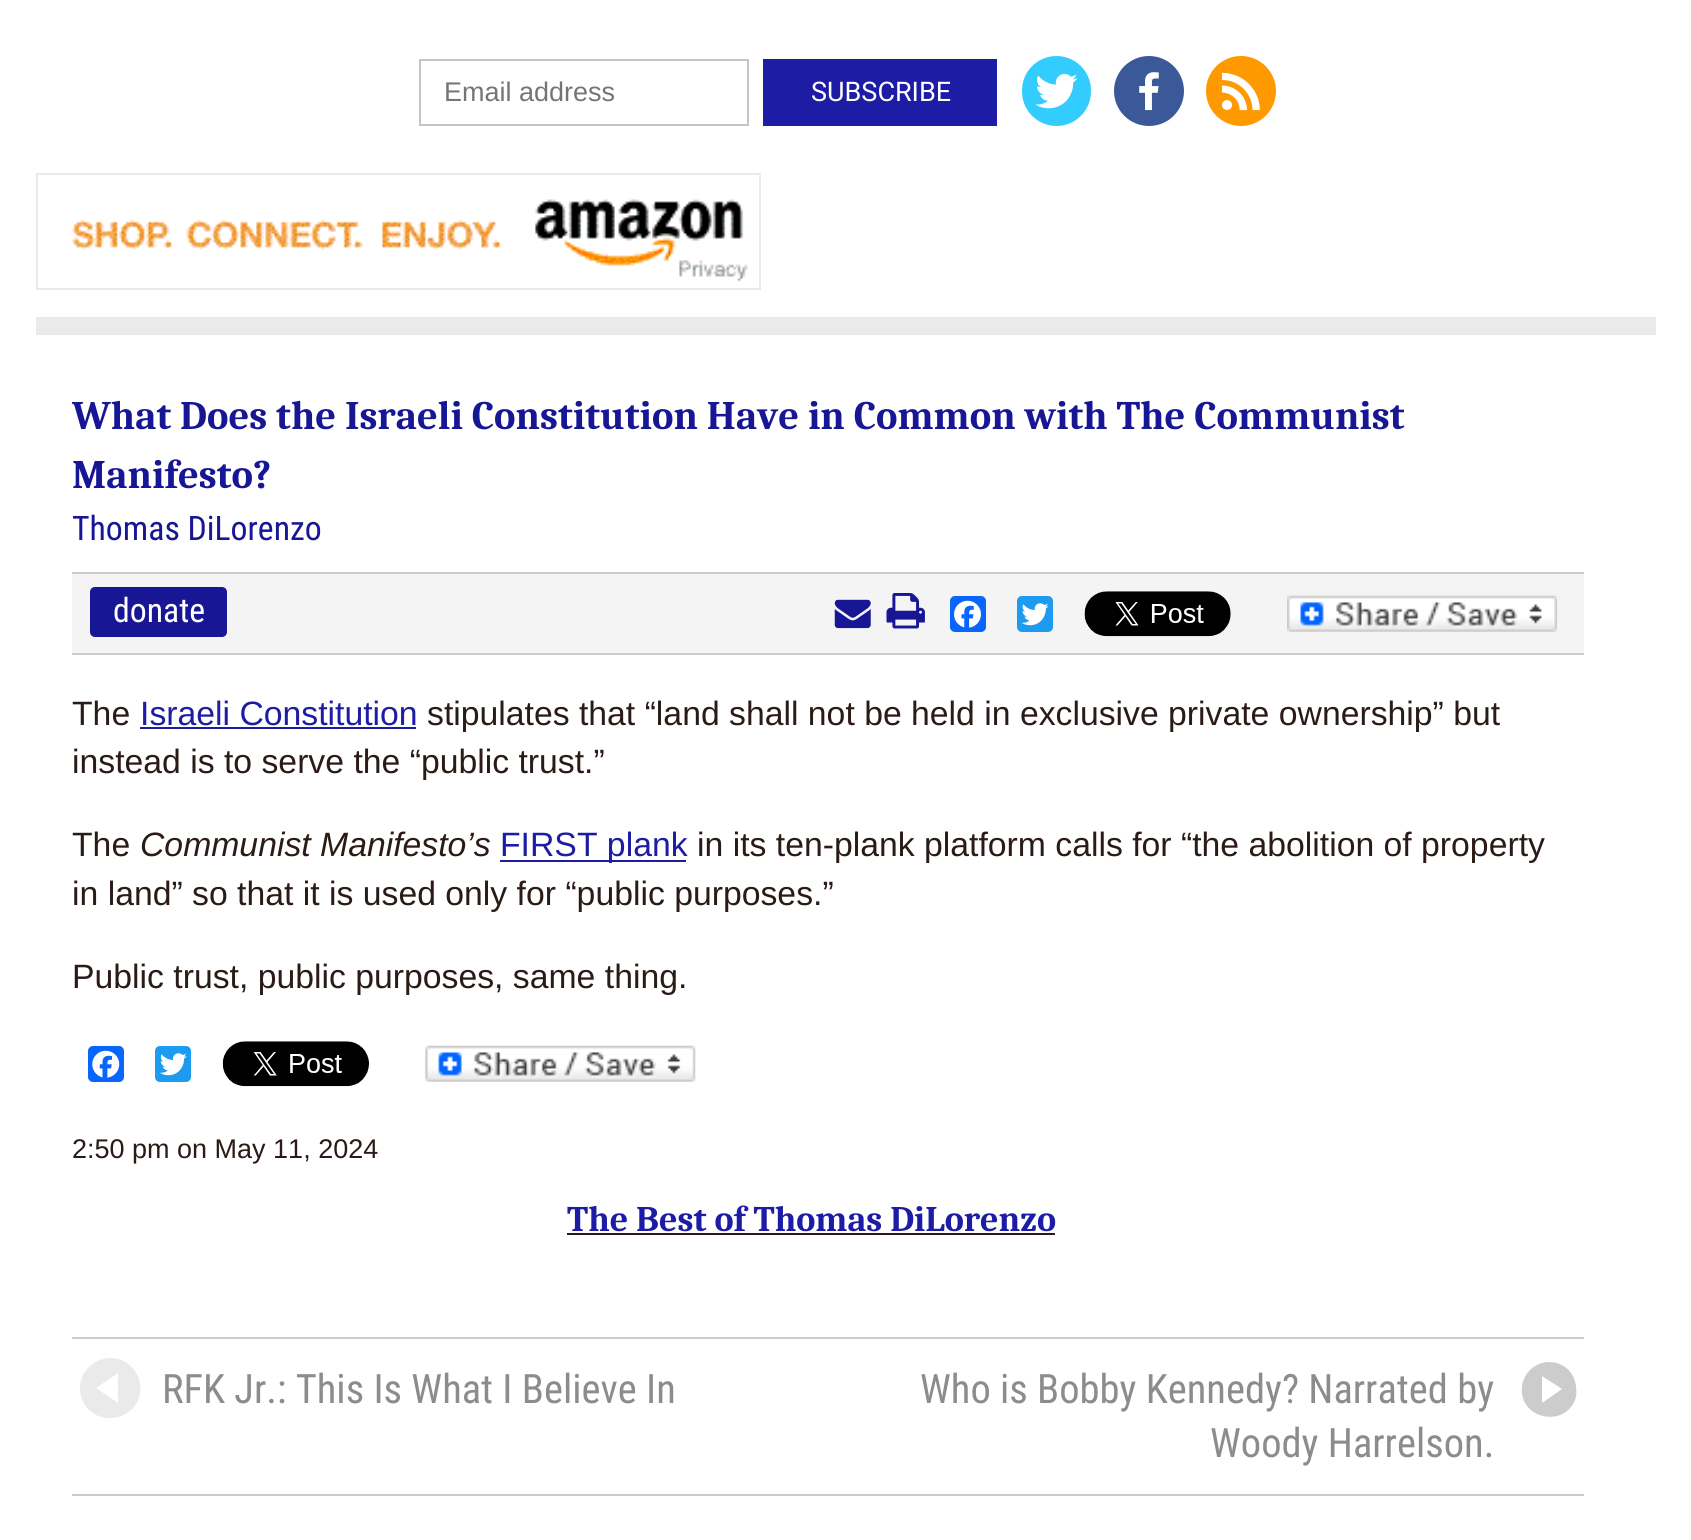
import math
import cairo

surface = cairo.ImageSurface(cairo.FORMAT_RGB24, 1691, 1540)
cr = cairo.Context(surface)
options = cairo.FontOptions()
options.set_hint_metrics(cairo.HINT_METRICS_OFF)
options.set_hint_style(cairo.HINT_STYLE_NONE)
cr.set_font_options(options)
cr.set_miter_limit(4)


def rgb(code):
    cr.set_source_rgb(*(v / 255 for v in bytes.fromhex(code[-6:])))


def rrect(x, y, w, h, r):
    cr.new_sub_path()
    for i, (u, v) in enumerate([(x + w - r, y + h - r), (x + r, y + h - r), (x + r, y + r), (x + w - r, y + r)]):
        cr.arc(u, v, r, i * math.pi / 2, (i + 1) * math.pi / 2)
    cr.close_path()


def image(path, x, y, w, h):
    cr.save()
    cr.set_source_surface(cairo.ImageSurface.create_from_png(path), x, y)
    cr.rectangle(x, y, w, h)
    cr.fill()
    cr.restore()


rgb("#ffffff")
cr.paint()
rgb("#eaeaea")
cr.rectangle(36, 317, 1620, 18)
cr.fill()
cr.rectangle(420, 60, 328, 65)
rgb("#c4c4c4")
cr.stroke()
rgb("#1c1ca5")
cr.rectangle(763, 59, 234, 67)
cr.fill()
rgb("#33ccff")
rrect(1022, 56, 69, 70, 34.5)
cr.fill()
image("img/1.png", 1035, 74, 43, 35)
rgb("#3b5998")
cr.arc(1149, 91, 35, 0, 2 * math.pi)
cr.fill()
image("img/2.png", 1139, 72, 20, 39)
rgb("#ff9900")
cr.arc(1241, 91, 35, 0, 2 * math.pi)
cr.fill()
image("img/3.png", 1221, 72, 39, 39)
cr.rectangle(37, 174, 723, 115)
rgb("#eaeaea")
cr.stroke()
image("img/4.png", 71, 199, 677, 83)
for x, y, w, h, color in [
    (72, 574, 1512, 79, "#f4f4f4"),
    (72, 572, 1512, 2, "#cccccc"),
    (72, 653, 1512, 2, "#cccccc"),
]:
    rgb(color)
    cr.rectangle(x, y, w, h)
    cr.fill()
rgb("#171796")
rrect(90, 587, 137, 50, 5)
cr.fill()
image("img/5.png", 834, 599, 37, 30)
image("img/6.png", 886, 593, 39, 36)
rgb("#0866ff")
rrect(950, 596, 36, 36, 5)
cr.fill()
image("img/7.png", 954, 600, 27, 28)
rgb("#1d9bf0")
rrect(1017, 596, 36, 36, 5)
cr.fill()
image("img/8.png", 1021, 603, 28, 23)
image("img/9.png", 1084, 591, 147, 46)
image("img/10.png", 1287, 595, 270, 37)
rgb("#1c1ca5")
cr.rectangle(140, 727, 276, 2)
cr.fill()
cr.rectangle(500, 860, 186, 2)
cr.fill()
rgb("#0866ff")
rrect(88, 1046, 36, 36, 5)
cr.fill()
image("img/11.png", 92, 1050, 28, 28)
rgb("#1d9bf0")
rrect(155, 1046, 36, 36, 5)
cr.fill()
image("img/12.png", 160, 1053, 27, 23)
image("img/13.png", 222, 1041, 147, 46)
image("img/14.png", 425, 1045, 271, 37)
for x, y, w, h, color in [
    (567, 1233, 488, 2, "#2b1b17"),
    (72, 1337, 1512, 2, "#cccccc"),
    (72, 1494, 1512, 2, "#cccccc"),
]:
    rgb(color)
    cr.rectangle(x, y, w, h)
    cr.fill()
rgb("#eaeaea")
cr.new_path()
cr.move_to(110, 1358)
cr.curve_to(125, 1358, 138, 1369, 140, 1384)
cr.curve_to(145, 1421, 91, 1432, 81, 1396)
cr.curve_to(79, 1388, 80, 1380, 84, 1373)
cr.curve_to(90, 1364, 100, 1358, 110, 1358)
cr.close_path()
cr.move_to(118, 1403)
cr.line_to(118, 1373)
cr.line_to(96, 1388)
cr.close_path()
cr.fill()
rgb("#cccccc")
cr.new_path()
cr.move_to(1549, 1362)
cr.curve_to(1536, 1362, 1524, 1372, 1522, 1386)
cr.curve_to(1518, 1420, 1567, 1429, 1576, 1397)
cr.curve_to(1577, 1390, 1576, 1382, 1573, 1376)
cr.curve_to(1568, 1367, 1559, 1362, 1549, 1362)
cr.close_path()
cr.move_to(1542, 1403)
cr.line_to(1542, 1376)
cr.line_to(1562, 1389)
cr.close_path()
cr.fill()
cr.select_font_face("Liberation Sans")
cr.set_font_size(27)
rgb("#757575")
cr.move_to(444, 101)
cr.show_text("Email address")
cr.select_font_face("Roboto")
rgb("#ffffff")
cr.move_to(811, 101)
cr.show_text("SUBSCRIBE")
cr.select_font_face("Caladea", cairo.FONT_SLANT_NORMAL, cairo.FONT_WEIGHT_BOLD)
cr.set_font_size(40.5)
rgb("#171796")
cr.move_to(72, 429)
cr.show_text("What Does the Israeli Constitution Have in Common with The Communist")
cr.move_to(72, 488)
cr.show_text("Manifesto?")
cr.select_font_face("Roboto Condensed")
cr.set_font_size(33.75)
cr.move_to(72, 540)
cr.show_text("Thomas DiLorenzo")
rgb("#ffffff")
cr.move_to(113, 622)
cr.show_text("donate")
cr.select_font_face("Liberation Sans")
rgb("#2b1b17")
cr.move_to(72, 725)
cr.show_text("The")
rgb("#1c1ca5")
cr.move_to(140, 725)
cr.show_text("Israeli Constitution")
rgb("#2b1b17")
for x, y, s in [
    (427, 725, "stipulates that “land shall not be held in exclusive private ownership” but"),
    (72, 773, "instead is to serve the “public trust.”"),
    (72, 856, "The"),
]:
    cr.move_to(x, y)
    cr.show_text(s)
cr.select_font_face("Liberation Sans", cairo.FONT_SLANT_ITALIC)
cr.move_to(140, 856)
cr.show_text("Communist Manifesto’s")
cr.select_font_face("Liberation Sans")
rgb("#1c1ca5")
cr.move_to(500, 856)
cr.show_text("FIRST plank")
rgb("#2b1b17")
for x, y, s in [
    (697, 856, "in its ten-plank platform calls for “the abolition of property"),
    (72, 905, "in land” so that it is used only for “public purposes.”"),
    (72, 988, "Public trust, public purposes, same thing."),
]:
    cr.move_to(x, y)
    cr.show_text(s)
cr.set_font_size(27)
cr.move_to(72, 1158)
cr.show_text("2:50 pm on May 11, 2024")
cr.select_font_face("Caladea", cairo.FONT_SLANT_NORMAL, cairo.FONT_WEIGHT_BOLD)
cr.set_font_size(36)
rgb("#1c1ca5")
cr.move_to(567, 1231)
cr.show_text("The Best of Thomas DiLorenzo")
cr.select_font_face("Roboto Condensed")
cr.set_font_size(40.5)
rgb("#8c8c8c")
for x, y, s in [
    (162, 1403, "RFK Jr.: This Is What I Believe In"),
    (920, 1403, "Who is Bobby Kennedy? Narrated by"),
    (1210, 1457, "Woody Harrelson."),
]:
    cr.move_to(x, y)
    cr.show_text(s)
surface.write_to_png("page.png")
